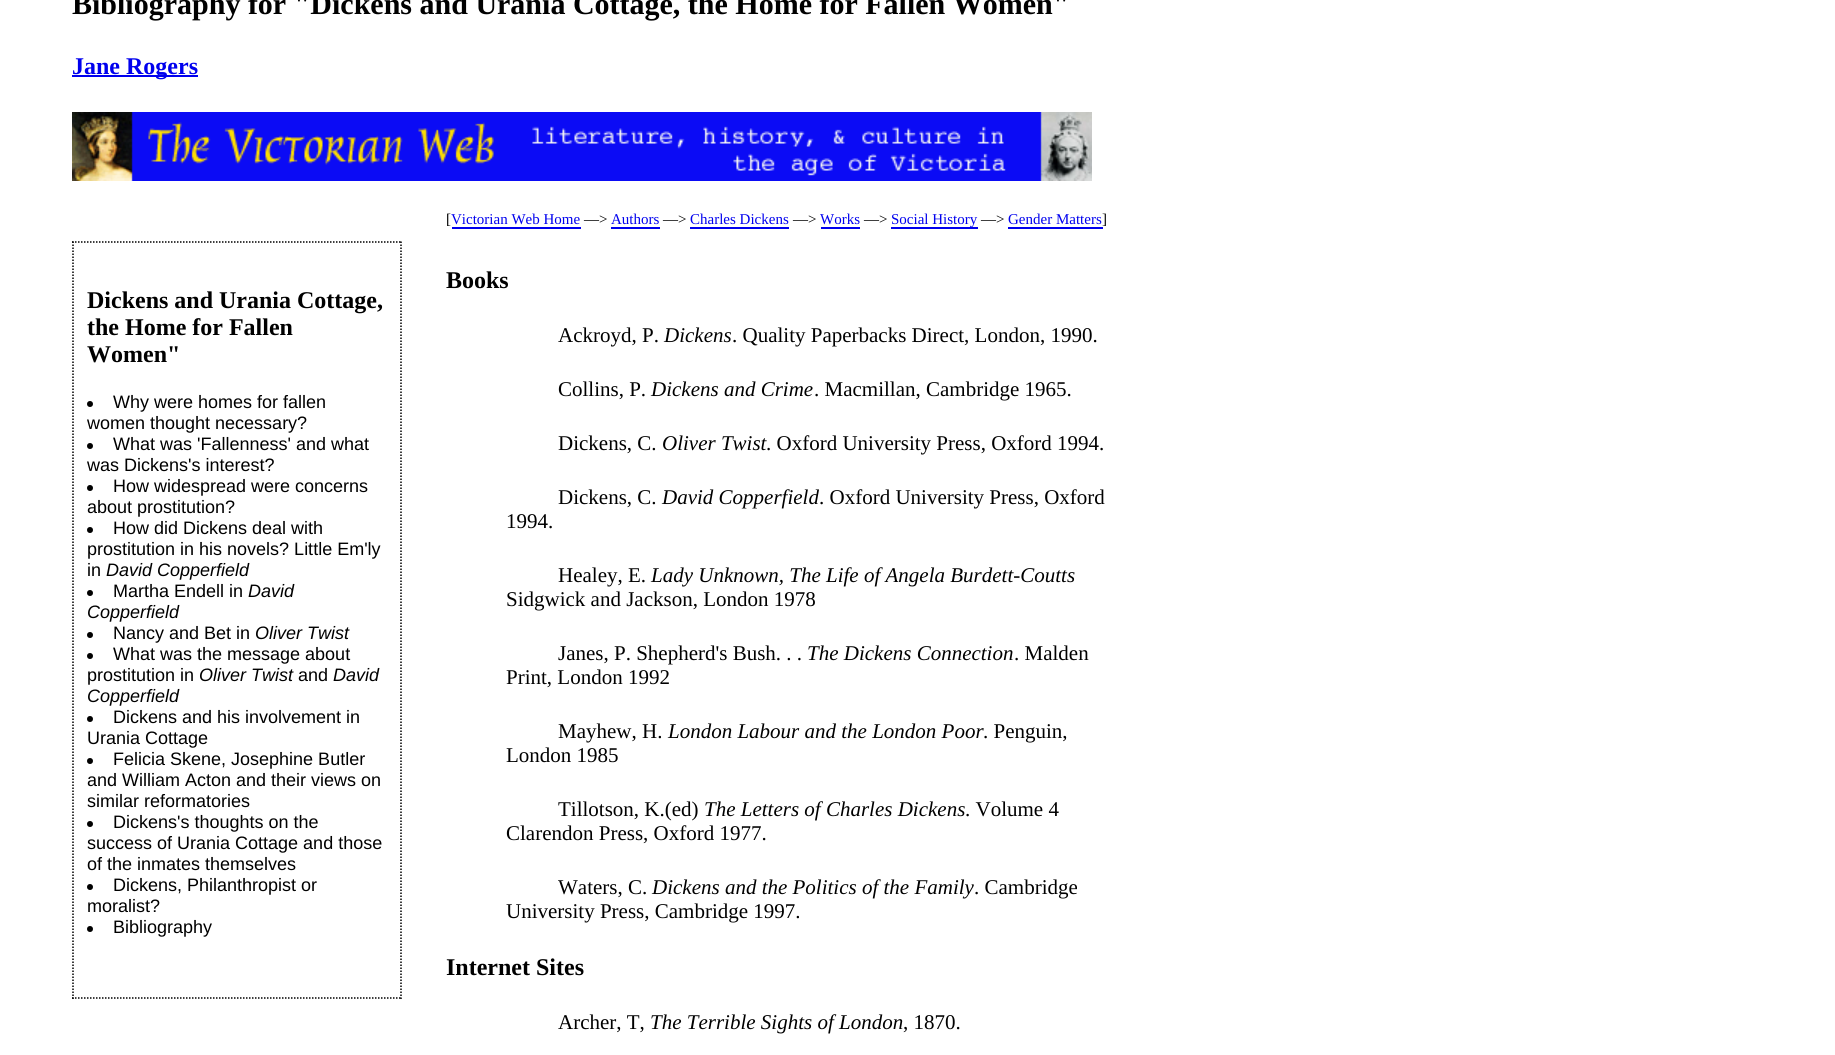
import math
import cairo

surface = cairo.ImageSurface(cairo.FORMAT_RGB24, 1835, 1055)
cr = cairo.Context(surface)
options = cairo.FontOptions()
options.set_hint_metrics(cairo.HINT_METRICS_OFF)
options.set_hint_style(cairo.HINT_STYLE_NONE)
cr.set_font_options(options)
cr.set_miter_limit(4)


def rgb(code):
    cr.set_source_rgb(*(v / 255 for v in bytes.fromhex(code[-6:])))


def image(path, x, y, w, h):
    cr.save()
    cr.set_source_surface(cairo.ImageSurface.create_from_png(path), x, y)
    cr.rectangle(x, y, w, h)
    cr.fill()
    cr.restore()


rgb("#ffffff")
cr.paint()
rgb("#0000ee")
cr.rectangle(72, 75, 126, 2)
cr.fill()
image("img/1.png", 72, 112, 1020, 69)
for x, y, w, h, color in [
    (452, 227, 129, 2, "#0000ee"),
    (611, 227, 49, 2, "#0000ee"),
    (690, 227, 99, 2, "#0000ee"),
    (821, 227, 39, 2, "#0000ee"),
    (891, 227, 87, 2, "#0000ee"),
    (1008, 227, 95, 2, "#0000ee"),
]:
    rgb(color)
    cr.rectangle(x, y, w, h)
    cr.fill()
cr.new_path()
cr.move_to(72, 242)
cr.line_to(402, 242)
rgb("#000000")
cr.set_line_width(1.5)
cr.set_dash([1.5, 1.5])
cr.stroke()
cr.new_path()
cr.move_to(401, 241.5)
cr.line_to(401, 999)
cr.stroke()
cr.new_path()
cr.move_to(72, 998)
cr.line_to(402, 998)
cr.stroke()
cr.new_path()
cr.move_to(73, 241.5)
cr.line_to(73, 999)
cr.stroke()
cr.arc(90, 404, 3, 0, 2 * math.pi)
cr.fill()
cr.arc(90, 446, 3, 0, 2 * math.pi)
cr.fill()
cr.arc(90, 488, 3, 0, 2 * math.pi)
cr.fill()
cr.arc(90, 530, 3, 0, 2 * math.pi)
cr.fill()
cr.arc(90, 593, 3, 0, 2 * math.pi)
cr.fill()
cr.arc(90, 635, 3, 0, 2 * math.pi)
cr.fill()
cr.arc(90, 656, 3, 0, 2 * math.pi)
cr.fill()
cr.arc(90, 719, 3, 0, 2 * math.pi)
cr.fill()
cr.arc(90, 761, 3, 0, 2 * math.pi)
cr.fill()
cr.arc(90, 824, 3, 0, 2 * math.pi)
cr.fill()
cr.arc(90, 887, 3, 0, 2 * math.pi)
cr.fill()
cr.arc(90, 929, 3, 0, 2 * math.pi)
cr.fill()
cr.select_font_face("Liberation Serif", cairo.FONT_SLANT_NORMAL, cairo.FONT_WEIGHT_BOLD)
cr.set_font_size(30)
cr.move_to(72, 14)
cr.show_text("Bibliography for \"Dickens and Urania Cottage, the Home for Fallen Women\"")
cr.set_font_size(24)
rgb("#0000ee")
cr.move_to(72, 74)
cr.show_text("Jane Rogers")
cr.select_font_face("Liberation Serif")
cr.set_font_size(15)
rgb("#000000")
cr.move_to(446, 224)
cr.show_text("[")
rgb("#0000ee")
cr.move_to(451, 224)
cr.show_text("Victorian Web Home")
rgb("#000000")
cr.move_to(584, 224)
cr.show_text("—>")
rgb("#0000ee")
cr.move_to(611, 224)
cr.show_text("Authors")
rgb("#000000")
cr.move_to(663, 224)
cr.show_text("—>")
rgb("#0000ee")
cr.move_to(690, 224)
cr.show_text("Charles Dickens")
rgb("#000000")
cr.move_to(793, 224)
cr.show_text("—>")
rgb("#0000ee")
cr.move_to(820, 224)
cr.show_text("Works")
rgb("#000000")
cr.move_to(864, 224)
cr.show_text("—>")
rgb("#0000ee")
cr.move_to(891, 224)
cr.show_text("Social History")
rgb("#000000")
cr.move_to(981, 224)
cr.show_text("—>")
rgb("#0000ee")
cr.move_to(1008, 224)
cr.show_text("Gender Matters")
rgb("#000000")
cr.move_to(1102, 224)
cr.show_text("]")
cr.select_font_face("Liberation Serif", cairo.FONT_SLANT_NORMAL, cairo.FONT_WEIGHT_BOLD)
cr.set_font_size(24)
for x, y, s in [
    (87, 308, "Dickens and Urania Cottage,"),
    (87, 335, "the Home for Fallen"),
    (87, 362, "Women\""),
]:
    cr.move_to(x, y)
    cr.show_text(s)
cr.select_font_face("Liberation Sans")
cr.set_font_size(18)
for x, y, s in [
    (113, 408, "Why were homes for fallen"),
    (87, 429, "women thought necessary?"),
    (113, 450, "What was 'Fallenness' and what"),
    (87, 471, "was Dickens's interest?"),
    (113, 492, "How widespread were concerns"),
    (87, 513, "about prostitution?"),
    (113, 534, "How did Dickens deal with"),
    (87, 555, "prostitution in his novels? Little Em'ly"),
    (87, 576, "in"),
]:
    cr.move_to(x, y)
    cr.show_text(s)
cr.select_font_face("Liberation Sans", cairo.FONT_SLANT_ITALIC)
cr.move_to(106, 576)
cr.show_text("David Copperfield")
cr.select_font_face("Liberation Sans")
cr.move_to(113, 597)
cr.show_text("Martha Endell in")
cr.select_font_face("Liberation Sans", cairo.FONT_SLANT_ITALIC)
cr.move_to(248, 597)
cr.show_text("David")
cr.move_to(87, 618)
cr.show_text("Copperfield")
cr.select_font_face("Liberation Sans")
cr.move_to(113, 639)
cr.show_text("Nancy and Bet in")
cr.select_font_face("Liberation Sans", cairo.FONT_SLANT_ITALIC)
cr.move_to(255, 639)
cr.show_text("Oliver Twist")
cr.select_font_face("Liberation Sans")
cr.move_to(113, 660)
cr.show_text("What was the message about")
cr.move_to(87, 681)
cr.show_text("prostitution in")
cr.select_font_face("Liberation Sans", cairo.FONT_SLANT_ITALIC)
cr.move_to(199, 681)
cr.show_text("Oliver Twist")
cr.select_font_face("Liberation Sans")
cr.move_to(298, 681)
cr.show_text("and")
cr.select_font_face("Liberation Sans", cairo.FONT_SLANT_ITALIC)
cr.move_to(333, 681)
cr.show_text("David")
cr.move_to(87, 702)
cr.show_text("Copperfield")
cr.select_font_face("Liberation Sans")
for x, y, s in [
    (113, 723, "Dickens and his involvement in"),
    (87, 744, "Urania Cottage"),
    (113, 765, "Felicia Skene, Josephine Butler"),
    (87, 786, "and William Acton and their views on"),
    (87, 807, "similar reformatories"),
    (113, 828, "Dickens's thoughts on the"),
    (87, 849, "success of Urania Cottage and those"),
    (87, 870, "of the inmates themselves"),
    (113, 891, "Dickens, Philanthropist or"),
    (87, 912, "moralist?"),
    (113, 933, "Bibliography"),
]:
    cr.move_to(x, y)
    cr.show_text(s)
cr.select_font_face("Liberation Serif", cairo.FONT_SLANT_NORMAL, cairo.FONT_WEIGHT_BOLD)
cr.set_font_size(24)
cr.move_to(446, 288)
cr.show_text("Books")
cr.select_font_face("Liberation Serif")
cr.set_font_size(21)
cr.move_to(558, 342)
cr.show_text("Ackroyd, P.")
cr.select_font_face("Liberation Serif", cairo.FONT_SLANT_ITALIC)
cr.move_to(664, 342)
cr.show_text("Dickens")
cr.select_font_face("Liberation Serif")
cr.move_to(732, 342)
cr.show_text(". Quality Paperbacks Direct, London, 1990.")
cr.move_to(558, 396)
cr.show_text("Collins, P.")
cr.select_font_face("Liberation Serif", cairo.FONT_SLANT_ITALIC)
cr.move_to(651, 396)
cr.show_text("Dickens and Crime")
cr.select_font_face("Liberation Serif")
cr.move_to(814, 396)
cr.show_text(". Macmillan, Cambridge 1965.")
cr.move_to(558, 450)
cr.show_text("Dickens, C.")
cr.select_font_face("Liberation Serif", cairo.FONT_SLANT_ITALIC)
cr.move_to(662, 450)
cr.show_text("Oliver Twist")
cr.select_font_face("Liberation Serif")
cr.move_to(766, 450)
cr.show_text(". Oxford University Press, Oxford 1994.")
cr.move_to(558, 504)
cr.show_text("Dickens, C.")
cr.select_font_face("Liberation Serif", cairo.FONT_SLANT_ITALIC)
cr.move_to(662, 504)
cr.show_text("David Copperfield")
cr.select_font_face("Liberation Serif")
for x, y, s in [
    (819, 504, ". Oxford University Press, Oxford"),
    (506, 528, "1994."),
    (558, 582, "Healey, E."),
]:
    cr.move_to(x, y)
    cr.show_text(s)
cr.select_font_face("Liberation Serif", cairo.FONT_SLANT_ITALIC)
cr.move_to(651, 582)
cr.show_text("Lady Unknown, The Life of Angela Burdett-Coutts")
cr.select_font_face("Liberation Serif")
cr.move_to(506, 606)
cr.show_text("Sidgwick and Jackson, London 1978")
cr.move_to(558, 660)
cr.show_text("Janes, P. Shepherd's Bush. . .")
cr.select_font_face("Liberation Serif", cairo.FONT_SLANT_ITALIC)
cr.move_to(807, 660)
cr.show_text("The Dickens Connection")
cr.select_font_face("Liberation Serif")
for x, y, s in [
    (1014, 660, ". Malden"),
    (506, 684, "Print, London 1992"),
    (558, 738, "Mayhew, H."),
]:
    cr.move_to(x, y)
    cr.show_text(s)
cr.select_font_face("Liberation Serif", cairo.FONT_SLANT_ITALIC)
cr.move_to(668, 738)
cr.show_text("London Labour and the London Poor")
cr.select_font_face("Liberation Serif")
for x, y, s in [
    (983, 738, ". Penguin,"),
    (506, 762, "London 1985"),
    (558, 816, "Tillotson, K.(ed)"),
]:
    cr.move_to(x, y)
    cr.show_text(s)
cr.select_font_face("Liberation Serif", cairo.FONT_SLANT_ITALIC)
cr.move_to(704, 816)
cr.show_text("The Letters of Charles Dickens")
cr.select_font_face("Liberation Serif")
for x, y, s in [
    (965, 816, ". Volume 4"),
    (506, 840, "Clarendon Press, Oxford 1977."),
    (558, 894, "Waters, C."),
]:
    cr.move_to(x, y)
    cr.show_text(s)
cr.select_font_face("Liberation Serif", cairo.FONT_SLANT_ITALIC)
cr.move_to(652, 894)
cr.show_text("Dickens and the Politics of the Family")
cr.select_font_face("Liberation Serif")
cr.move_to(974, 894)
cr.show_text(". Cambridge")
cr.move_to(506, 918)
cr.show_text("University Press, Cambridge 1997.")
cr.select_font_face("Liberation Serif", cairo.FONT_SLANT_NORMAL, cairo.FONT_WEIGHT_BOLD)
cr.set_font_size(24)
cr.move_to(446, 975)
cr.show_text("Internet Sites")
cr.select_font_face("Liberation Serif")
cr.set_font_size(21)
cr.move_to(558, 1029)
cr.show_text("Archer, T,")
cr.select_font_face("Liberation Serif", cairo.FONT_SLANT_ITALIC)
cr.move_to(650, 1029)
cr.show_text("The Terrible Sights of London")
cr.select_font_face("Liberation Serif")
cr.move_to(903, 1029)
cr.show_text(", 1870.")
surface.write_to_png("page.png")
